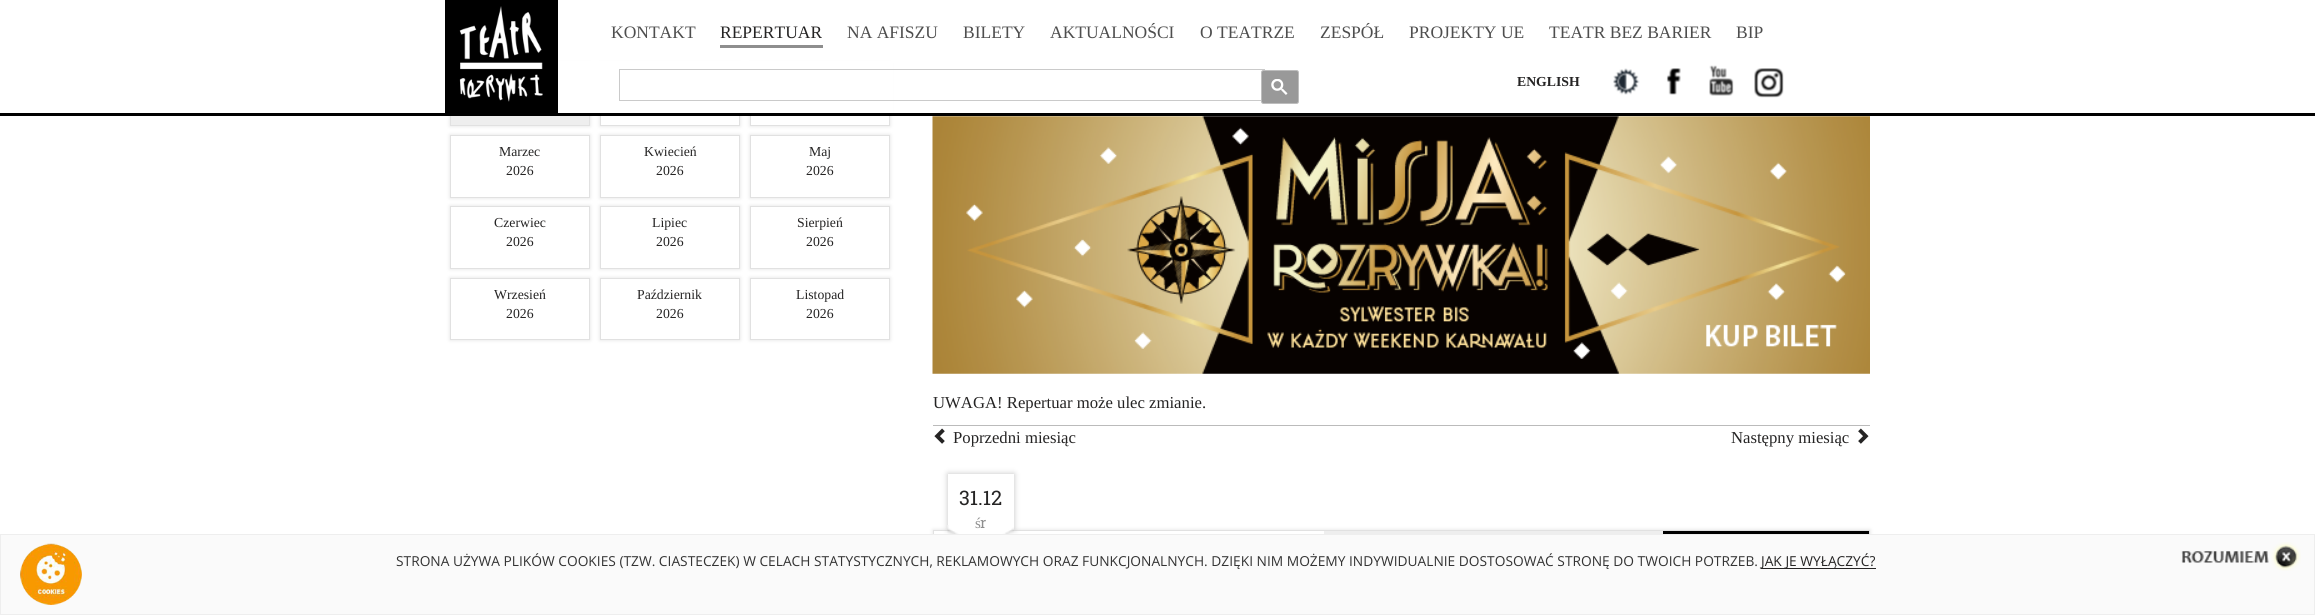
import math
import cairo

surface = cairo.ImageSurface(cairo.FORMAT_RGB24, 2315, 615)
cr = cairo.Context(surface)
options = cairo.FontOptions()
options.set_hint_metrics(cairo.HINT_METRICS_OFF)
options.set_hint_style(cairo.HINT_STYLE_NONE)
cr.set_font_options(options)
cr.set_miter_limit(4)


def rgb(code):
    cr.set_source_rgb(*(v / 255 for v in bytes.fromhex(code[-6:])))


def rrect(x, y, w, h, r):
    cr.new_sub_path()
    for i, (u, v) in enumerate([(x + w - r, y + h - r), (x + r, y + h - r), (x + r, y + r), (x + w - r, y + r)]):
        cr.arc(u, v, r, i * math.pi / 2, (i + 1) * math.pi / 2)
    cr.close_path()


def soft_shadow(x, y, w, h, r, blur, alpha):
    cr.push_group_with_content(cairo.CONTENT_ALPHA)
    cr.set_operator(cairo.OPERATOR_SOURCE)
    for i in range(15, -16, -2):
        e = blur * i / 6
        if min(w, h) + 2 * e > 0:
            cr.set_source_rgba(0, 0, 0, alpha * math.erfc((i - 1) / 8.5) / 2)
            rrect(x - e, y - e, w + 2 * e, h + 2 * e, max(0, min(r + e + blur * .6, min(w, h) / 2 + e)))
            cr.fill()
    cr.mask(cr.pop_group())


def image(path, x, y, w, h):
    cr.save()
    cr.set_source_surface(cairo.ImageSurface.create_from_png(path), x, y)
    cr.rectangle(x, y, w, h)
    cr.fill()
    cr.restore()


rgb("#ffffff")
cr.paint()
rgb("#e1e1e1")
soft_shadow(450, 64, 140, 62, 0, 2, 1)
rgb("#eeeeee")
cr.rectangle(451, 116, 138, 9)
cr.fill()
cr.rectangle(450.5, 64.5, 139, 61)
rgb("#e1e1e1")
cr.set_line_width(1)
cr.stroke()
cr.save()
cr.set_fill_rule(cairo.FILL_RULE_EVEN_ODD)
cr.new_path()
cr.move_to(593, 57)
cr.line_to(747, 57)
cr.line_to(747, 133)
cr.line_to(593, 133)
cr.close_path()
cr.move_to(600, 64)
cr.line_to(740, 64)
cr.line_to(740, 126)
cr.line_to(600, 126)
cr.close_path()
cr.clip()
rgb("#e1e1e1")
soft_shadow(600, 64, 140, 62, 0, 2, 1)
cr.restore()
cr.rectangle(600.5, 64.5, 139, 61)
cr.stroke()
cr.save()
cr.set_fill_rule(cairo.FILL_RULE_EVEN_ODD)
cr.new_path()
cr.move_to(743, 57)
cr.line_to(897, 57)
cr.line_to(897, 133)
cr.line_to(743, 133)
cr.close_path()
cr.move_to(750, 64)
cr.line_to(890, 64)
cr.line_to(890, 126)
cr.line_to(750, 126)
cr.close_path()
cr.clip()
rgb("#e1e1e1")
soft_shadow(750, 64, 140, 62, 0, 2, 1)
cr.restore()
cr.rectangle(750.5, 64.5, 139, 61)
cr.stroke()
rgb("#ffffff")
cr.rectangle(447, 61, 446, 52)
cr.fill()
rgb("#000000")
cr.rectangle(0, 113, 2315, 3)
cr.fill()
image("img/1.png", 445, 0, 113, 113)
rgb("#8e8e8e")
cr.rectangle(720, 45, 103, 3)
cr.fill()
cr.rectangle(619.5, 69.5, 645, 31)
rgb("#cacaca")
cr.stroke()
rgb("#999999")
rrect(1261.5, 70.5, 37, 33, 2)
cr.fill_preserve()
rgb("#bdbdbd")
cr.stroke()
image("img/2.png", 1271, 79, 17, 16)
image("img/3.png", 1613, 68, 27, 27)
image("img/4.png", 1666, 68, 15, 27)
image("img/5.png", 1709, 65, 25, 31)
image("img/6.png", 1754, 68, 30, 30)
cr.save()
cr.set_fill_rule(cairo.FILL_RULE_EVEN_ODD)
cr.new_path()
cr.move_to(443, 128)
cr.line_to(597, 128)
cr.line_to(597, 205)
cr.line_to(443, 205)
cr.close_path()
cr.move_to(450, 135)
cr.line_to(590, 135)
cr.line_to(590, 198)
cr.line_to(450, 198)
cr.close_path()
cr.clip()
rgb("#e1e1e1")
soft_shadow(450, 135, 140, 63, 0, 2, 1)
cr.restore()
cr.rectangle(450.5, 135.5, 139, 62)
rgb("#e1e1e1")
cr.stroke()
cr.save()
cr.set_fill_rule(cairo.FILL_RULE_EVEN_ODD)
cr.new_path()
cr.move_to(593, 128)
cr.line_to(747, 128)
cr.line_to(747, 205)
cr.line_to(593, 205)
cr.close_path()
cr.move_to(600, 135)
cr.line_to(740, 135)
cr.line_to(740, 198)
cr.line_to(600, 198)
cr.close_path()
cr.clip()
rgb("#e1e1e1")
soft_shadow(600, 135, 140, 63, 0, 2, 1)
cr.restore()
cr.rectangle(600.5, 135.5, 139, 62)
cr.stroke()
cr.save()
cr.set_fill_rule(cairo.FILL_RULE_EVEN_ODD)
cr.new_path()
cr.move_to(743, 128)
cr.line_to(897, 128)
cr.line_to(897, 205)
cr.line_to(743, 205)
cr.close_path()
cr.move_to(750, 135)
cr.line_to(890, 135)
cr.line_to(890, 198)
cr.line_to(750, 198)
cr.close_path()
cr.clip()
rgb("#e1e1e1")
soft_shadow(750, 135, 140, 63, 0, 2, 1)
cr.restore()
cr.rectangle(750.5, 135.5, 139, 62)
cr.stroke()
cr.save()
cr.set_fill_rule(cairo.FILL_RULE_EVEN_ODD)
cr.new_path()
cr.move_to(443, 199)
cr.line_to(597, 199)
cr.line_to(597, 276)
cr.line_to(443, 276)
cr.close_path()
cr.move_to(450, 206)
cr.line_to(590, 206)
cr.line_to(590, 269)
cr.line_to(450, 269)
cr.close_path()
cr.clip()
rgb("#e1e1e1")
soft_shadow(450, 206, 140, 63, 0, 2, 1)
cr.restore()
cr.rectangle(450.5, 206.5, 139, 62)
cr.stroke()
cr.save()
cr.set_fill_rule(cairo.FILL_RULE_EVEN_ODD)
cr.new_path()
cr.move_to(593, 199)
cr.line_to(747, 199)
cr.line_to(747, 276)
cr.line_to(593, 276)
cr.close_path()
cr.move_to(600, 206)
cr.line_to(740, 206)
cr.line_to(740, 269)
cr.line_to(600, 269)
cr.close_path()
cr.clip()
rgb("#e1e1e1")
soft_shadow(600, 206, 140, 63, 0, 2, 1)
cr.restore()
cr.rectangle(600.5, 206.5, 139, 62)
cr.stroke()
cr.save()
cr.set_fill_rule(cairo.FILL_RULE_EVEN_ODD)
cr.new_path()
cr.move_to(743, 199)
cr.line_to(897, 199)
cr.line_to(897, 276)
cr.line_to(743, 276)
cr.close_path()
cr.move_to(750, 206)
cr.line_to(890, 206)
cr.line_to(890, 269)
cr.line_to(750, 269)
cr.close_path()
cr.clip()
rgb("#e1e1e1")
soft_shadow(750, 206, 140, 63, 0, 2, 1)
cr.restore()
cr.rectangle(750.5, 206.5, 139, 62)
cr.stroke()
cr.save()
cr.set_fill_rule(cairo.FILL_RULE_EVEN_ODD)
cr.new_path()
cr.move_to(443, 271)
cr.line_to(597, 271)
cr.line_to(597, 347)
cr.line_to(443, 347)
cr.close_path()
cr.move_to(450, 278)
cr.line_to(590, 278)
cr.line_to(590, 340)
cr.line_to(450, 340)
cr.close_path()
cr.clip()
rgb("#e1e1e1")
soft_shadow(450, 278, 140, 62, 0, 2, 1)
cr.restore()
cr.rectangle(450.5, 278.5, 139, 61)
cr.stroke()
cr.save()
cr.set_fill_rule(cairo.FILL_RULE_EVEN_ODD)
cr.new_path()
cr.move_to(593, 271)
cr.line_to(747, 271)
cr.line_to(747, 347)
cr.line_to(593, 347)
cr.close_path()
cr.move_to(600, 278)
cr.line_to(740, 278)
cr.line_to(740, 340)
cr.line_to(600, 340)
cr.close_path()
cr.clip()
rgb("#e1e1e1")
soft_shadow(600, 278, 140, 62, 0, 2, 1)
cr.restore()
cr.rectangle(600.5, 278.5, 139, 61)
cr.stroke()
cr.save()
cr.set_fill_rule(cairo.FILL_RULE_EVEN_ODD)
cr.new_path()
cr.move_to(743, 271)
cr.line_to(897, 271)
cr.line_to(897, 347)
cr.line_to(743, 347)
cr.close_path()
cr.move_to(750, 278)
cr.line_to(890, 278)
cr.line_to(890, 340)
cr.line_to(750, 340)
cr.close_path()
cr.clip()
rgb("#e1e1e1")
soft_shadow(750, 278, 140, 62, 0, 2, 1)
cr.restore()
cr.rectangle(750.5, 278.5, 139, 61)
cr.stroke()
rgb("#bbbbbb")
cr.rectangle(933, 425, 937, 1)
cr.fill()
image("img/7.png", 932, 116, 938, 258)
image("img/8.png", 934, 428, 11, 16)
image("img/9.png", 1858, 428, 11, 16)
cr.save()
cr.set_fill_rule(cairo.FILL_RULE_EVEN_ODD)
cr.new_path()
cr.move_to(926, 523)
cr.line_to(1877, 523)
cr.line_to(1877, 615)
cr.line_to(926, 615)
cr.close_path()
cr.move_to(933, 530)
cr.line_to(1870, 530)
cr.line_to(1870, 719)
cr.line_to(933, 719)
cr.close_path()
cr.clip()
rgb("#e1e1e1")
soft_shadow(933, 530, 937, 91, 0, 2, 1)
cr.restore()
cr.rectangle(933.5, 530.5, 936, 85)
rgb("#e1e1e1")
cr.stroke()
cr.save()
cr.set_fill_rule(cairo.FILL_RULE_EVEN_ODD)
cr.new_path()
cr.move_to(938, 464)
cr.line_to(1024, 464)
cr.line_to(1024, 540)
cr.line_to(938, 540)
cr.close_path()
cr.move_to(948, 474)
cr.line_to(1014, 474)
cr.line_to(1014, 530)
cr.line_to(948, 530)
cr.close_path()
cr.clip()
rgb("#c3c3c3")
soft_shadow(948, 474, 66, 56, 0, 3, 1)
cr.restore()
image("img/10.png", 947, 525, 67, 9)
rgb("#eeeeee")
cr.rectangle(1324, 531, 339, 3)
cr.fill()
rgb("#000000")
cr.rectangle(1663, 531, 206, 3)
cr.fill()
rgb("#fafafa")
cr.rectangle(0.5, 534.5, 2314, 80)
cr.fill_preserve()
rgb("#eeeeee")
cr.stroke()
image("img/11.png", 20, 543, 62, 62)
rgb("#252424")
cr.rectangle(1761, 568, 115, 1)
cr.fill()
image("img/12.png", 2181, 542, 120, 29)
cr.select_font_face("Liberation Serif")
cr.set_font_size(17.5)
rgb("#4e4e4e")
cr.move_to(611, 38)
cr.show_text("KONTAKT")
rgb("#252424")
cr.move_to(720, 38)
cr.show_text("REPERTUAR")
rgb("#4e4e4e")
for x, y, s in [
    (847, 38, "NA AFISZU"),
    (963, 38, "BILETY"),
    (1050, 38, "AKTUALNOŚCI"),
    (1200, 38, "O TEATRZE"),
    (1320, 38, "ZESPÓŁ"),
    (1409, 38, "PROJEKTY UE"),
    (1549, 38, "TEATR BEZ BARIER"),
    (1736, 38, "BIP"),
]:
    cr.move_to(x, y)
    cr.show_text(s)
cr.select_font_face("Liberation Serif", cairo.FONT_SLANT_NORMAL, cairo.FONT_WEIGHT_BOLD)
cr.set_font_size(13.75)
rgb("#252424")
cr.move_to(1517, 86)
cr.show_text("ENGLISH")
cr.select_font_face("Liberation Serif")
for x, y, s in [
    (499, 156, "Marzec"),
    (506, 175, "2026"),
    (644, 156, "Kwiecień"),
    (656, 175, "2026"),
    (809, 156, "Maj"),
    (806, 175, "2026"),
    (494, 227, "Czerwiec"),
    (506, 246, "2026"),
    (652, 227, "Lipiec"),
    (656, 246, "2026"),
    (797, 227, "Sierpień"),
    (806, 246, "2026"),
    (494, 299, "Wrzesień"),
    (506, 318, "2026"),
    (637, 299, "Październik"),
    (656, 318, "2026"),
    (796, 299, "Listopad"),
    (806, 318, "2026"),
]:
    cr.move_to(x, y)
    cr.show_text(s)
cr.set_font_size(16.7)
for x, y, s in [
    (933, 408, "UWAGA! Repertuar może ulec zmianie."),
    (953, 443, "Poprzedni miesiąc"),
    (1731, 443, "Następny miesiąc"),
]:
    cr.move_to(x, y)
    cr.show_text(s)
cr.select_font_face("Roboto Slab")
cr.set_font_size(20)
cr.move_to(959, 505)
cr.show_text("31.12")
cr.select_font_face("Liberation Serif")
cr.set_font_size(15)
rgb("#8e8e8e")
cr.move_to(975, 528)
cr.show_text("ś")
cr.select_font_face("Roboto Slab")
cr.move_to(980, 528)
cr.show_text("r")
cr.select_font_face("Open Sans")
cr.set_font_size(13.75)
rgb("#333333")
cr.move_to(396, 566)
cr.show_text("STRONA UŻYWA PLIKÓW COOKIES (TZW. CIASTECZEK) W CELACH STATYSTYCZNYCH, REKLAMOWYCH ORAZ FUNKCJONALNYCH. DZIĘKI NIM MOŻEMY INDYWIDUALNIE DOSTOSOWAĆ STRONĘ DO TWOICH POTRZEB.")
rgb("#252424")
cr.move_to(1761, 566)
cr.show_text("JAK JE WYŁĄCZYĆ?")
surface.write_to_png("page.png")
